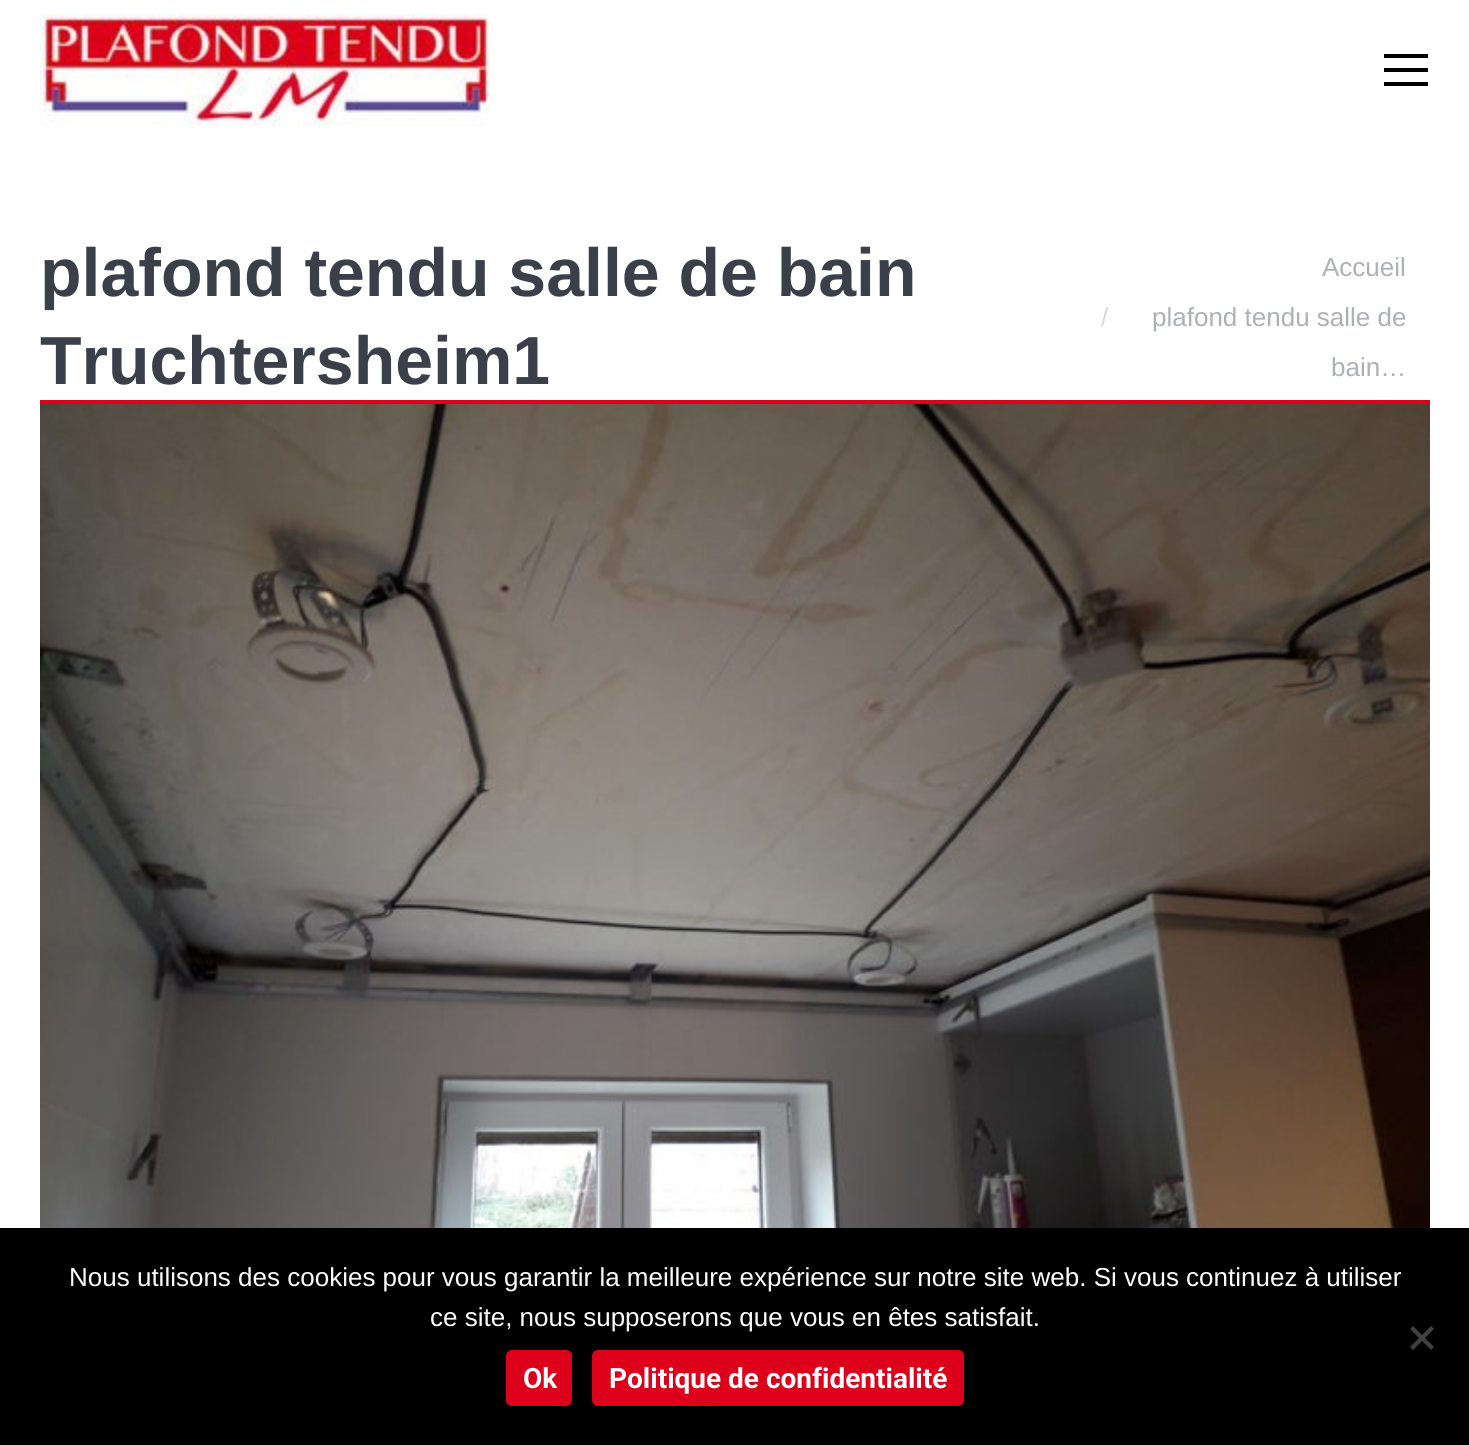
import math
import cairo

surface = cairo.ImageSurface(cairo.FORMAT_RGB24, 1469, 1445)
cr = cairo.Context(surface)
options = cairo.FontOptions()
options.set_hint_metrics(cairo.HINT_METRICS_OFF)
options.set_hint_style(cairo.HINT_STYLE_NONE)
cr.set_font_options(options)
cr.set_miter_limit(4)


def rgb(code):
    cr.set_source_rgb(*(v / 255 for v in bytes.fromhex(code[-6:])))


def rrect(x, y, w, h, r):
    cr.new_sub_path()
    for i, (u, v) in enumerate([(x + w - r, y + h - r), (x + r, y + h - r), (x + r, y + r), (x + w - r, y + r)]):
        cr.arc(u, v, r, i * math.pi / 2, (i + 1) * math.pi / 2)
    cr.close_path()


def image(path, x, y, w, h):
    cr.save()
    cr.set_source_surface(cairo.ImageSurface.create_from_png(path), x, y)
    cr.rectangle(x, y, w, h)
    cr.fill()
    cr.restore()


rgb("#ffffff")
cr.paint()
image("img/1.png", 40, 14, 450, 112)
for x, y, w, h, color in [
    (1384, 54, 44, 4, "#000000"),
    (1384, 68, 44, 4, "#000000"),
    (1384, 82, 44, 4, "#000000"),
    (40, 400, 1390, 4, "#dc001a"),
]:
    rgb(color)
    cr.rectangle(x, y, w, h)
    cr.fill()
image("img/2.png", 40, 404, 1390, 824)
rgb("#000000")
cr.rectangle(0, 1228, 1469, 217)
cr.fill()
rgb("#404040")
cr.new_path()
cr.move_to(1431, 1326)
cr.line_to(1434, 1329)
cr.line_to(1413, 1350)
cr.line_to(1410, 1347)
cr.close_path()
cr.fill()
cr.new_path()
cr.move_to(1410, 1329)
cr.line_to(1413, 1326)
cr.line_to(1434, 1347)
cr.line_to(1431, 1350)
cr.close_path()
cr.fill()
rgb("#dc001a")
rrect(506, 1350, 66, 56, 6)
cr.fill()
rrect(592, 1350, 372, 56, 6)
cr.fill()
cr.select_font_face("Arimo", cairo.FONT_SLANT_NORMAL, cairo.FONT_WEIGHT_BOLD)
cr.set_font_size(68)
rgb("#3b3f4a")
cr.move_to(40, 296)
cr.show_text("plafond tendu salle de bain")
cr.move_to(40, 384)
cr.show_text("Truchtersheim1")
cr.select_font_face("Arimo")
cr.set_font_size(26)
rgb("#adb0b6")
cr.move_to(1322, 276)
cr.show_text("Accueil")
rgb("#d6d8db")
cr.move_to(1101, 326)
cr.show_text("/")
rgb("#adb0b6")
cr.move_to(1152, 326)
cr.show_text("plafond tendu salle de")
cr.move_to(1331, 376)
cr.show_text("bain…")
cr.select_font_face("Liberation Sans")
rgb("#ffffff")
cr.move_to(69, 1286)
cr.show_text("Nous utilisons des cookies pour vous garantir la meilleure expérience sur notre site web. Si vous continuez à utiliser")
cr.move_to(430, 1326)
cr.show_text("ce site, nous supposerons que vous en êtes satisfait.")
cr.select_font_face("Roboto", cairo.FONT_SLANT_NORMAL, cairo.FONT_WEIGHT_BOLD)
cr.set_font_size(28)
cr.move_to(523, 1388)
cr.show_text("Ok")
cr.move_to(609, 1388)
cr.show_text("Politique de confidentialité")
surface.write_to_png("page.png")
